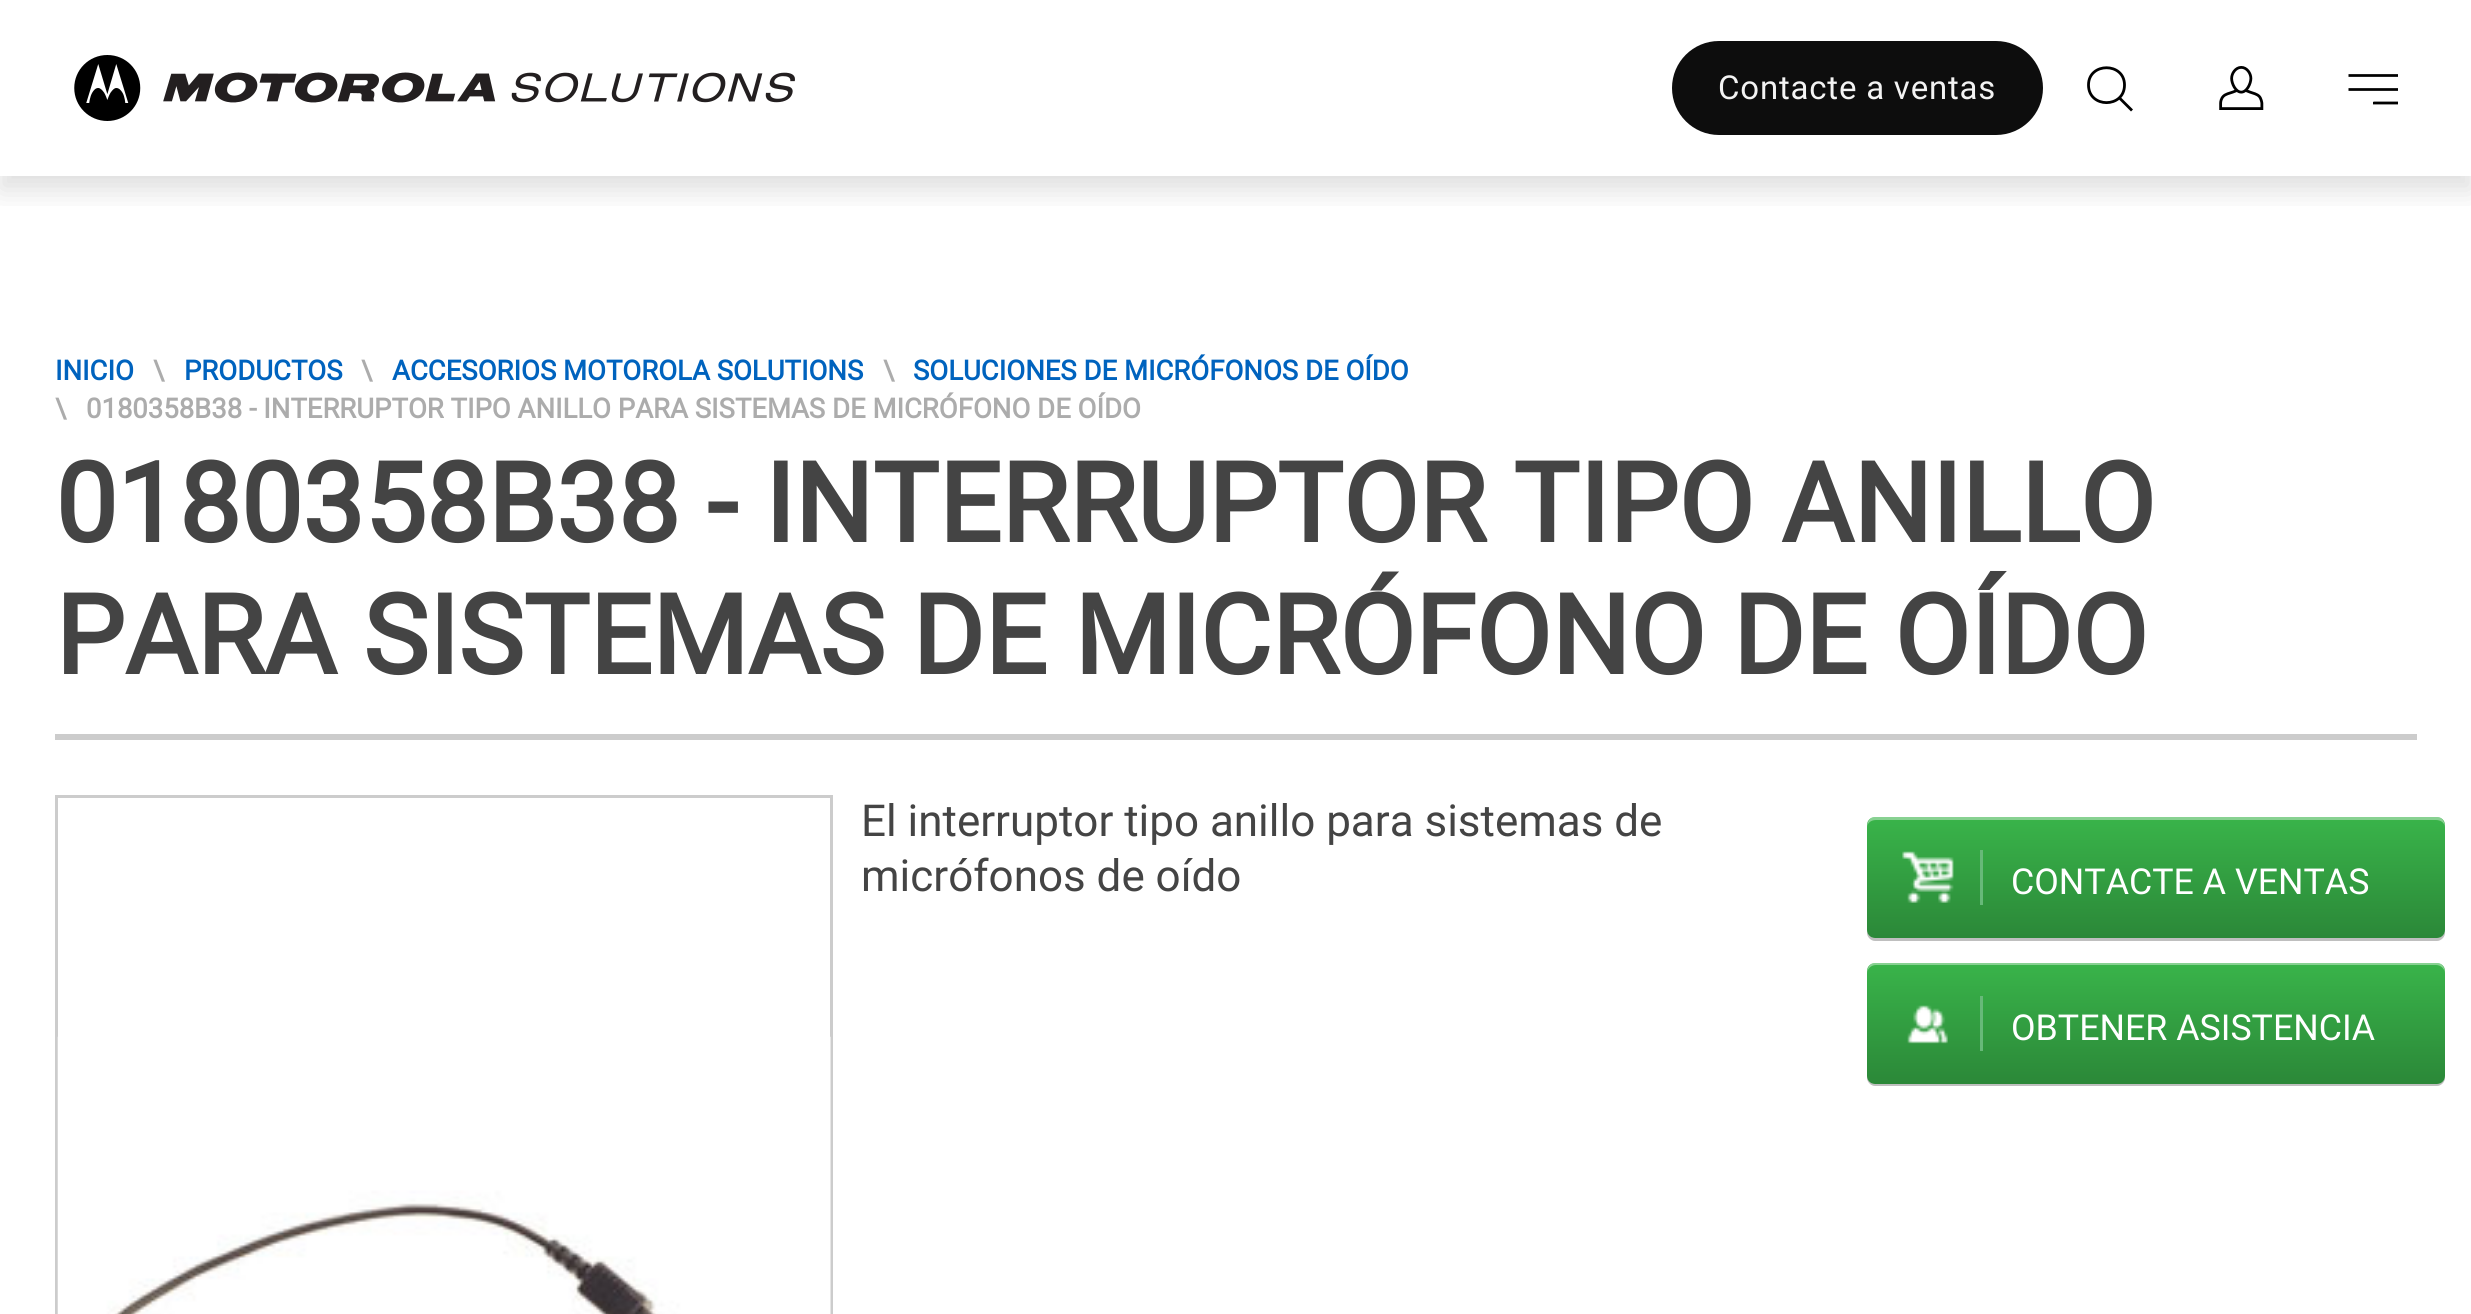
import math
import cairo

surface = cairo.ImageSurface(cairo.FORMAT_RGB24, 2471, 1314)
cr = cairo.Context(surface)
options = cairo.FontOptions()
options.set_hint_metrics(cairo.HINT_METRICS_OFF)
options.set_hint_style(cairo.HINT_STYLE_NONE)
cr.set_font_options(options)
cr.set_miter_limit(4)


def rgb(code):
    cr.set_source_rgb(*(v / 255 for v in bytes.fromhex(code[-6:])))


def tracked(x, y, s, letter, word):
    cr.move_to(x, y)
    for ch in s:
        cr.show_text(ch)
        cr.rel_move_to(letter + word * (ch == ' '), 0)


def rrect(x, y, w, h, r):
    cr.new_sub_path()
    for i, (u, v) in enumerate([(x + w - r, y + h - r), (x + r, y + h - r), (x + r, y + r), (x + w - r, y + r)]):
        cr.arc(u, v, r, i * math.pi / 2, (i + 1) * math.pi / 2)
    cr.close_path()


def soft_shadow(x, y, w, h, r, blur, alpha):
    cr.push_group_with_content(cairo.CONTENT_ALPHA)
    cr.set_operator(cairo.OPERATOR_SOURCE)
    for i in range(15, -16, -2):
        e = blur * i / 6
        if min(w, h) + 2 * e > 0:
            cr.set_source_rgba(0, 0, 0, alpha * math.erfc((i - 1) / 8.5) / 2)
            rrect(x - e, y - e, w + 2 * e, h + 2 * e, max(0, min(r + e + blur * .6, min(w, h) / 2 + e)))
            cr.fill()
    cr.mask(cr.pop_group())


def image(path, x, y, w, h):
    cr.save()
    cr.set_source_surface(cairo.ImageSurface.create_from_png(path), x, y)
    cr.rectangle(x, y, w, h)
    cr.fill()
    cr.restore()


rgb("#ffffff")
cr.paint()
cr.save()
cr.rectangle(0, 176, 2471, 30)
cr.clip()
rgb("#232323")
soft_shadow(0, 14, 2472, 176, 0, 14, 0.15)
cr.restore()
image("img/1.png", 74, 55, 721, 66)
rgb("#0d0d0d")
rrect(1672, 41, 371, 94, 47)
cr.fill()
cr.new_path()
cr.move_to(2124.5, 85)
cr.curve_to(2124.5, 108.5, 2088.5, 108.5, 2088.5, 85)
cr.curve_to(2088.5, 62, 2124.5, 62, 2124.5, 85)
cr.close_path()
cr.move_to(2132, 110.5)
cr.line_to(2119, 97.5)
rgb("#000000")
cr.set_line_width(2.8)
cr.stroke()
image("img/2.png", 2219, 66, 45, 44)
cr.new_path()
cr.move_to(2373, 103)
cr.line_to(2398, 103)
cr.move_to(2348.5, 89.5)
cr.line_to(2398, 89.5)
cr.move_to(2348.5, 75.5)
cr.line_to(2398, 75.5)
cr.set_line_join(cairo.LINE_JOIN_ROUND)
cr.stroke()
cr.new_path()
cr.move_to(2375.5, 95.5)
cr.line_to(2325.5, 145.5)
cr.move_to(2375.5, 145.5)
cr.line_to(2325.5, 95.5)
rgb("#ffffff")
cr.set_line_width(5.5)
cr.set_line_cap(cairo.LINE_CAP_SQUARE)
cr.set_line_join(cairo.LINE_JOIN_MITER)
cr.stroke()
rgb("#cccccc")
cr.rectangle(55, 734, 2362, 6)
cr.fill()
cr.rectangle(56.5, 796.5, 775, 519)
cr.set_line_width(3)
cr.set_line_cap(cairo.LINE_CAP_BUTT)
cr.stroke()
image("img/3.png", 57, 1036, 774, 278)
rgb("#bfbfbf")
cr.new_path()
cr.move_to(1867, 826)
cr.line_to(1867, 933)
cr.curve_to(1867, 937, 1871, 941, 1875, 941)
cr.line_to(2437, 941)
cr.curve_to(2441, 941, 2445, 937, 2445, 933)
cr.line_to(2445, 826)
cr.line_to(2445, 930)
cr.curve_to(2445, 934, 2441, 938, 2436, 938)
cr.line_to(1876, 938)
cr.curve_to(1871, 938, 1867, 934, 1867, 930)
cr.close_path()
cr.fill()
gradient = cairo.LinearGradient(2156, 817, 2156, 938)
gradient.add_color_stop_rgba(0, 0.224, 0.706, 0.29, 1)
gradient.add_color_stop_rgba(1, 0.169, 0.533, 0.22, 1)
cr.set_source(gradient)
rrect(1867, 817, 578, 121, 8)
cr.fill()
cr.set_source_rgba(1, 1, 1, 0.4)
cr.new_path()
cr.move_to(1876, 820)
cr.line_to(2436, 820)
cr.curve_to(2441, 820, 2445, 823, 2445, 828)
cr.curve_to(2445, 823, 2443, 817, 2437, 817)
cr.line_to(1875, 817)
cr.curve_to(1869, 817, 1867, 823, 1867, 828)
cr.curve_to(1867, 823, 1871, 820, 1876, 820)
cr.close_path()
cr.fill()
image("img/4.png", 1902, 851, 52, 52)
rgb("#67b979")
cr.rectangle(1980, 850, 3, 55)
cr.fill()
rgb("#bfbfbf")
cr.new_path()
cr.move_to(1867, 971)
cr.line_to(1867, 1078)
cr.curve_to(1867, 1082, 1871, 1086, 1875, 1086)
cr.line_to(2437, 1086)
cr.curve_to(2441, 1086, 2445, 1082, 2445, 1078)
cr.line_to(2445, 971)
cr.line_to(2445, 1075)
cr.curve_to(2445, 1080, 2441, 1084, 2436, 1084)
cr.line_to(1876, 1084)
cr.curve_to(1871, 1084, 1867, 1080, 1867, 1075)
cr.close_path()
cr.fill()
gradient = cairo.LinearGradient(2156, 963, 2156, 1084)
gradient.add_color_stop_rgba(0, 0.224, 0.706, 0.29, 1)
gradient.add_color_stop_rgba(1, 0.169, 0.533, 0.22, 1)
cr.set_source(gradient)
rrect(1867, 963, 578, 121, 8)
cr.fill()
cr.set_source_rgba(1, 1, 1, 0.4)
cr.new_path()
cr.move_to(1876, 965)
cr.line_to(2436, 965)
cr.curve_to(2441, 965, 2445, 969, 2445, 974)
cr.curve_to(2445, 969, 2443, 963, 2437, 963)
cr.line_to(1875, 963)
cr.curve_to(1869, 963, 1867, 969, 1867, 974)
cr.curve_to(1867, 969, 1871, 965, 1876, 965)
cr.close_path()
cr.fill()
image("img/5.png", 1907, 1005, 41, 39)
rgb("#67b979")
cr.rectangle(1980, 996, 3, 55)
cr.fill()
cr.select_font_face("Roboto")
cr.set_font_size(33)
rgb("#f3f3f3")
tracked(1718, 99, "Contacte a ventas", 0.8, 0)
cr.select_font_face("Roboto", cairo.FONT_SLANT_NORMAL, cairo.FONT_WEIGHT_BOLD)
cr.set_font_size(27.5)
rgb("#0063be")
cr.move_to(55, 380)
cr.show_text("INICIO")
rgb("#acacac")
cr.move_to(153, 380)
cr.show_text("\\")
rgb("#0063be")
cr.move_to(184, 380)
cr.show_text("PRODUCTOS")
rgb("#acacac")
cr.move_to(361, 380)
cr.show_text("\\")
rgb("#0063be")
cr.move_to(392, 380)
cr.show_text("ACCESORIOS MOTOROLA SOLUTIONS")
rgb("#acacac")
cr.move_to(883, 380)
cr.show_text("\\")
rgb("#0063be")
cr.move_to(913, 380)
cr.show_text("SOLUCIONES DE MICRÓFONOS DE OÍDO")
rgb("#acacac")
cr.move_to(55, 418)
cr.show_text("\\")
cr.move_to(86, 418)
cr.show_text("0180358B38 - INTERRUPTOR TIPO ANILLO PARA SISTEMAS DE MICRÓFONO DE OÍDO")
cr.set_font_size(110)
rgb("#444444")
cr.move_to(55, 542)
cr.show_text("0180358B38 - INTERRUPTOR TIPO ANILLO")
cr.move_to(55, 674)
cr.show_text("PARA SISTEMAS DE MICRÓFONO DE OÍDO")
cr.select_font_face("Roboto")
cr.set_font_size(44)
cr.move_to(861, 836)
cr.show_text("El interruptor tipo anillo para sistemas de")
cr.move_to(861, 891)
cr.show_text("micrófonos de oído")
cr.set_font_size(35.75)
rgb("#ffffff")
cr.move_to(2011, 894)
cr.show_text("CONTACTE A VENTAS")
cr.move_to(2011, 1040)
cr.show_text("OBTENER ASISTENCIA")
surface.write_to_png("page.png")
